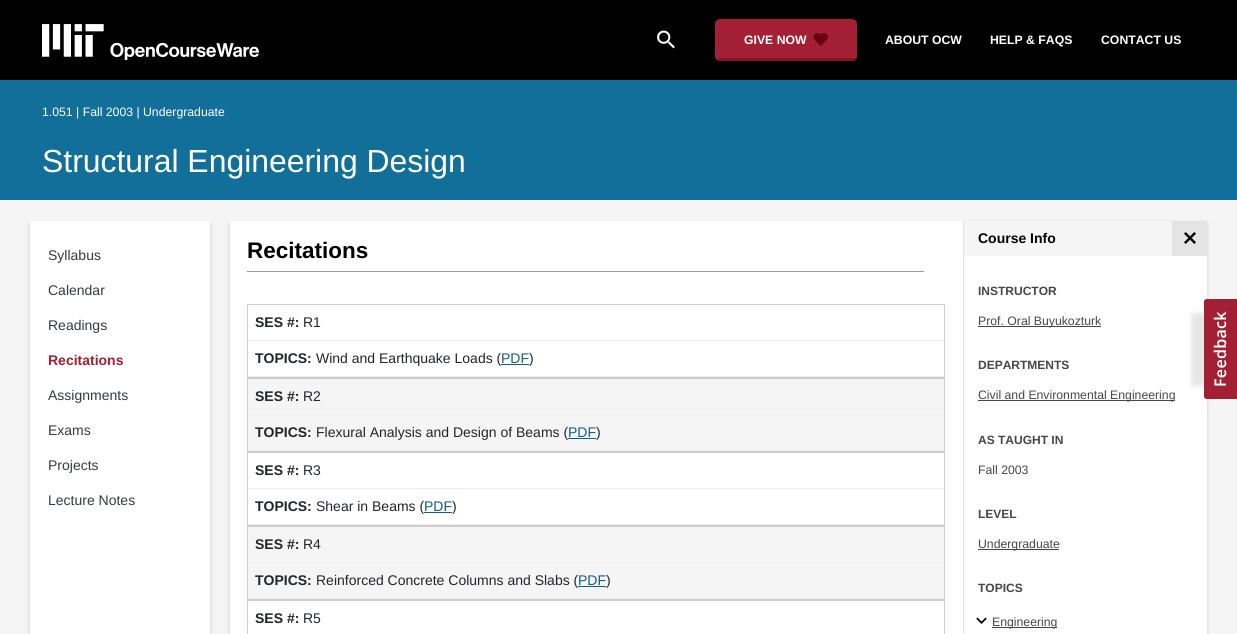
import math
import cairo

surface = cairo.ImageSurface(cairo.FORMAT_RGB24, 1237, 634)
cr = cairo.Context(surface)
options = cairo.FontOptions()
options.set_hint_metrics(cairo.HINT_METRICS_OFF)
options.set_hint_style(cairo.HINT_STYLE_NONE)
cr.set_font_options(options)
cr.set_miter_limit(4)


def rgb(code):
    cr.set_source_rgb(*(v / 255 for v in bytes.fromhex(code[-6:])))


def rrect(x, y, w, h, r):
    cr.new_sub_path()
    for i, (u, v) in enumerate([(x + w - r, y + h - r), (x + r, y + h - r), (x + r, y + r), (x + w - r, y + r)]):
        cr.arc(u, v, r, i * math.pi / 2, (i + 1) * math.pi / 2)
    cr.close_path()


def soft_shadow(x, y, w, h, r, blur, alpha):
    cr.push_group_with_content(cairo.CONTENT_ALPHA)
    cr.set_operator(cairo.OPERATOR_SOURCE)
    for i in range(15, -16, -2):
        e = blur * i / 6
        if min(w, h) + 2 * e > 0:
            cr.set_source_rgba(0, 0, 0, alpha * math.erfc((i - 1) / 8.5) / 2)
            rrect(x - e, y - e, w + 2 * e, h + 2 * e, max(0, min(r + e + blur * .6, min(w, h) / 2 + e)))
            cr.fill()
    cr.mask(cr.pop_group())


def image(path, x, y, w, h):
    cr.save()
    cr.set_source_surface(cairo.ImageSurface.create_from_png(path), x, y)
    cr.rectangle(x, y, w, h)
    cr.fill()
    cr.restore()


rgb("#f5f5f5")
cr.paint()
rgb("#000000")
cr.rectangle(0, 0, 1237, 80)
cr.fill()
image("img/1.png", 42, 24, 217, 36)
image("img/2.png", 657, 30, 18, 19)
rgb("#a31f34")
rrect(715, 19, 142, 42, 5)
cr.fill()
rgb("#851124")
cr.rectangle(718, 58, 137, 3)
cr.fill()
image("img/3.png", 813, 33, 15, 13)
rgb("#126f9a")
cr.rectangle(0, 80, 1237, 120)
cr.fill()
rgb("#000000")
soft_shadow(30, 223, 180, 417, 0, 2, 0.16)
rgb("#ffffff")
cr.rectangle(30, 221, 180, 413)
cr.fill()
rgb("#000000")
soft_shadow(230, 223, 977, 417, 0, 2, 0.16)
rgb("#ffffff")
cr.rectangle(230, 221, 977, 413)
cr.fill()
rgb("#9c9d9e")
cr.rectangle(247, 271, 677, 1)
cr.fill()
cr.rectangle(247.5, 304.5, 697, 73)
rgb("#cccccc")
cr.set_line_width(1)
cr.stroke()
for x, y, w, h, color in [
    (248, 340, 696, 1, "#eeeeee"),
    (248, 376, 696, 1, "#eeeeee"),
    (501, 364, 28, 1, "#115f83"),
    (248, 379, 696, 71, "#f5f5f5"),
]:
    rgb(color)
    cr.rectangle(x, y, w, h)
    cr.fill()
cr.rectangle(247.5, 378.5, 697, 73)
rgb("#cccccc")
cr.stroke()
for x, y, w, h, color in [
    (248, 414, 696, 1, "#eeeeee"),
    (248, 450, 696, 1, "#eeeeee"),
    (568, 438, 28, 1, "#115f83"),
]:
    rgb(color)
    cr.rectangle(x, y, w, h)
    cr.fill()
cr.rectangle(247.5, 452.5, 697, 73)
rgb("#cccccc")
cr.stroke()
for x, y, w, h, color in [
    (248, 488, 696, 1, "#eeeeee"),
    (248, 524, 696, 1, "#eeeeee"),
    (424, 512, 28, 1, "#115f83"),
    (248, 527, 696, 71, "#f5f5f5"),
]:
    rgb(color)
    cr.rectangle(x, y, w, h)
    cr.fill()
cr.rectangle(247.5, 526.5, 697, 73)
rgb("#cccccc")
cr.stroke()
for x, y, w, h, color in [
    (248, 562, 696, 1, "#eeeeee"),
    (248, 598, 696, 1, "#eeeeee"),
    (578, 586, 28, 1, "#115f83"),
]:
    rgb(color)
    cr.rectangle(x, y, w, h)
    cr.fill()
cr.rectangle(247.5, 600.5, 697, 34)
rgb("#cccccc")
cr.stroke()
for x, y, w, h, color in [
    (963, 221, 1, 413, "#dee2e6"),
    (964, 221, 208, 35, "#f5f5f5"),
    (978, 326, 123, 1, "#464646"),
    (978, 400, 197, 1, "#464646"),
    (978, 549, 81, 1, "#464646"),
]:
    rgb(color)
    cr.rectangle(x, y, w, h)
    cr.fill()
image("img/4.png", 976, 617, 11, 7)
cr.rectangle(992, 627, 65, 1)
cr.fill()
rgb("#e4e4e4")
cr.rectangle(1172, 221, 35, 35)
cr.fill()
image("img/5.png", 1184, 232, 12, 12)
rgb("#000000")
soft_shadow(1191, 313, 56, 73, 2, 2.5, 0.1)
image("img/6.png", 1204, 299, 33, 100)
cr.select_font_face("Liberation Sans", cairo.FONT_SLANT_NORMAL, cairo.FONT_WEIGHT_BOLD)
cr.set_font_size(12.25)
rgb("#ffffff")
for x, y, s in [
    (744, 44, "GIVE NOW"),
    (885, 44, "ABOUT OCW"),
    (990, 44, "HELP & FAQS"),
    (1101, 44, "CONTACT US"),
]:
    cr.move_to(x, y)
    cr.show_text(s)
cr.select_font_face("Liberation Sans")
cr.move_to(42, 116)
cr.show_text("1.051 | Fall 2003 | Undergraduate")
cr.set_font_size(31.9)
cr.move_to(42, 172)
cr.show_text("Structural Engineering Design")
cr.set_font_size(14)
rgb("#343a40")
for x, y, s in [
    (48, 260, "Syllabus"),
    (48, 295, "Calendar"),
    (48, 330, "Readings"),
]:
    cr.move_to(x, y)
    cr.show_text(s)
cr.select_font_face("Liberation Sans", cairo.FONT_SLANT_NORMAL, cairo.FONT_WEIGHT_BOLD)
rgb("#a31f34")
cr.move_to(48, 365)
cr.show_text("Recitations")
cr.select_font_face("Liberation Sans")
rgb("#343a40")
for x, y, s in [
    (48, 400, "Assignments"),
    (48, 435, "Exams"),
    (48, 470, "Projects"),
    (48, 505, "Lecture Notes"),
]:
    cr.move_to(x, y)
    cr.show_text(s)
cr.select_font_face("Liberation Sans", cairo.FONT_SLANT_NORMAL, cairo.FONT_WEIGHT_BOLD)
cr.set_font_size(22.5)
rgb("#000000")
cr.move_to(247, 258)
cr.show_text("Recitations")
cr.set_font_size(14)
rgb("#212529")
cr.move_to(255, 327)
cr.show_text("SES #:")
cr.select_font_face("Liberation Sans")
cr.move_to(303, 327)
cr.show_text("R1")
cr.select_font_face("Liberation Sans", cairo.FONT_SLANT_NORMAL, cairo.FONT_WEIGHT_BOLD)
cr.move_to(255, 363)
cr.show_text("TOPICS:")
cr.select_font_face("Liberation Sans")
cr.move_to(316, 363)
cr.show_text("Wind and Earthquake Loads (")
rgb("#115f83")
cr.move_to(501, 363)
cr.show_text("PDF")
rgb("#212529")
cr.move_to(529, 363)
cr.show_text(")")
cr.select_font_face("Liberation Sans", cairo.FONT_SLANT_NORMAL, cairo.FONT_WEIGHT_BOLD)
cr.move_to(255, 401)
cr.show_text("SES #:")
cr.select_font_face("Liberation Sans")
cr.move_to(303, 401)
cr.show_text("R2")
cr.select_font_face("Liberation Sans", cairo.FONT_SLANT_NORMAL, cairo.FONT_WEIGHT_BOLD)
cr.move_to(255, 437)
cr.show_text("TOPICS:")
cr.select_font_face("Liberation Sans")
cr.move_to(316, 437)
cr.show_text("Flexural Analysis and Design of Beams (")
rgb("#115f83")
cr.move_to(568, 437)
cr.show_text("PDF")
rgb("#212529")
cr.move_to(596, 437)
cr.show_text(")")
cr.select_font_face("Liberation Sans", cairo.FONT_SLANT_NORMAL, cairo.FONT_WEIGHT_BOLD)
cr.move_to(255, 475)
cr.show_text("SES #:")
cr.select_font_face("Liberation Sans")
cr.move_to(303, 475)
cr.show_text("R3")
cr.select_font_face("Liberation Sans", cairo.FONT_SLANT_NORMAL, cairo.FONT_WEIGHT_BOLD)
cr.move_to(255, 511)
cr.show_text("TOPICS:")
cr.select_font_face("Liberation Sans")
cr.move_to(316, 511)
cr.show_text("Shear in Beams (")
rgb("#115f83")
cr.move_to(424, 511)
cr.show_text("PDF")
rgb("#212529")
cr.move_to(452, 511)
cr.show_text(")")
cr.select_font_face("Liberation Sans", cairo.FONT_SLANT_NORMAL, cairo.FONT_WEIGHT_BOLD)
cr.move_to(255, 549)
cr.show_text("SES #:")
cr.select_font_face("Liberation Sans")
cr.move_to(303, 549)
cr.show_text("R4")
cr.select_font_face("Liberation Sans", cairo.FONT_SLANT_NORMAL, cairo.FONT_WEIGHT_BOLD)
cr.move_to(255, 585)
cr.show_text("TOPICS:")
cr.select_font_face("Liberation Sans")
cr.move_to(316, 585)
cr.show_text("Reinforced Concrete Columns and Slabs (")
rgb("#115f83")
cr.move_to(578, 585)
cr.show_text("PDF")
rgb("#212529")
cr.move_to(606, 585)
cr.show_text(")")
cr.select_font_face("Liberation Sans", cairo.FONT_SLANT_NORMAL, cairo.FONT_WEIGHT_BOLD)
cr.move_to(255, 623)
cr.show_text("SES #:")
cr.select_font_face("Liberation Sans")
cr.move_to(303, 623)
cr.show_text("R5")
cr.select_font_face("Liberation Sans", cairo.FONT_SLANT_NORMAL, cairo.FONT_WEIGHT_BOLD)
rgb("#000000")
cr.move_to(978, 243)
cr.show_text("Course Info")
cr.set_font_size(12)
rgb("#464646")
cr.move_to(978, 295)
cr.show_text("INSTRUCTOR")
cr.select_font_face("Liberation Sans")
cr.set_font_size(12.25)
cr.move_to(978, 325)
cr.show_text("Prof. Oral Buyukozturk")
cr.select_font_face("Liberation Sans", cairo.FONT_SLANT_NORMAL, cairo.FONT_WEIGHT_BOLD)
cr.set_font_size(12)
cr.move_to(978, 369)
cr.show_text("DEPARTMENTS")
cr.select_font_face("Liberation Sans")
cr.set_font_size(12.25)
cr.move_to(978, 399)
cr.show_text("Civil and Environmental Engineering")
cr.select_font_face("Liberation Sans", cairo.FONT_SLANT_NORMAL, cairo.FONT_WEIGHT_BOLD)
cr.set_font_size(12)
cr.move_to(978, 444)
cr.show_text("AS TAUGHT IN")
cr.select_font_face("Liberation Sans")
cr.set_font_size(12.25)
cr.move_to(978, 474)
cr.show_text("Fall 2003")
cr.select_font_face("Liberation Sans", cairo.FONT_SLANT_NORMAL, cairo.FONT_WEIGHT_BOLD)
cr.set_font_size(12)
cr.move_to(978, 518)
cr.show_text("LEVEL")
cr.select_font_face("Liberation Sans")
cr.set_font_size(12.25)
cr.move_to(978, 548)
cr.show_text("Undergraduate")
cr.select_font_face("Liberation Sans", cairo.FONT_SLANT_NORMAL, cairo.FONT_WEIGHT_BOLD)
cr.set_font_size(12)
cr.move_to(978, 592)
cr.show_text("TOPICS")
cr.select_font_face("Liberation Sans")
cr.set_font_size(12.25)
cr.move_to(992, 626)
cr.show_text("Engineering")
surface.write_to_png("page.png")
